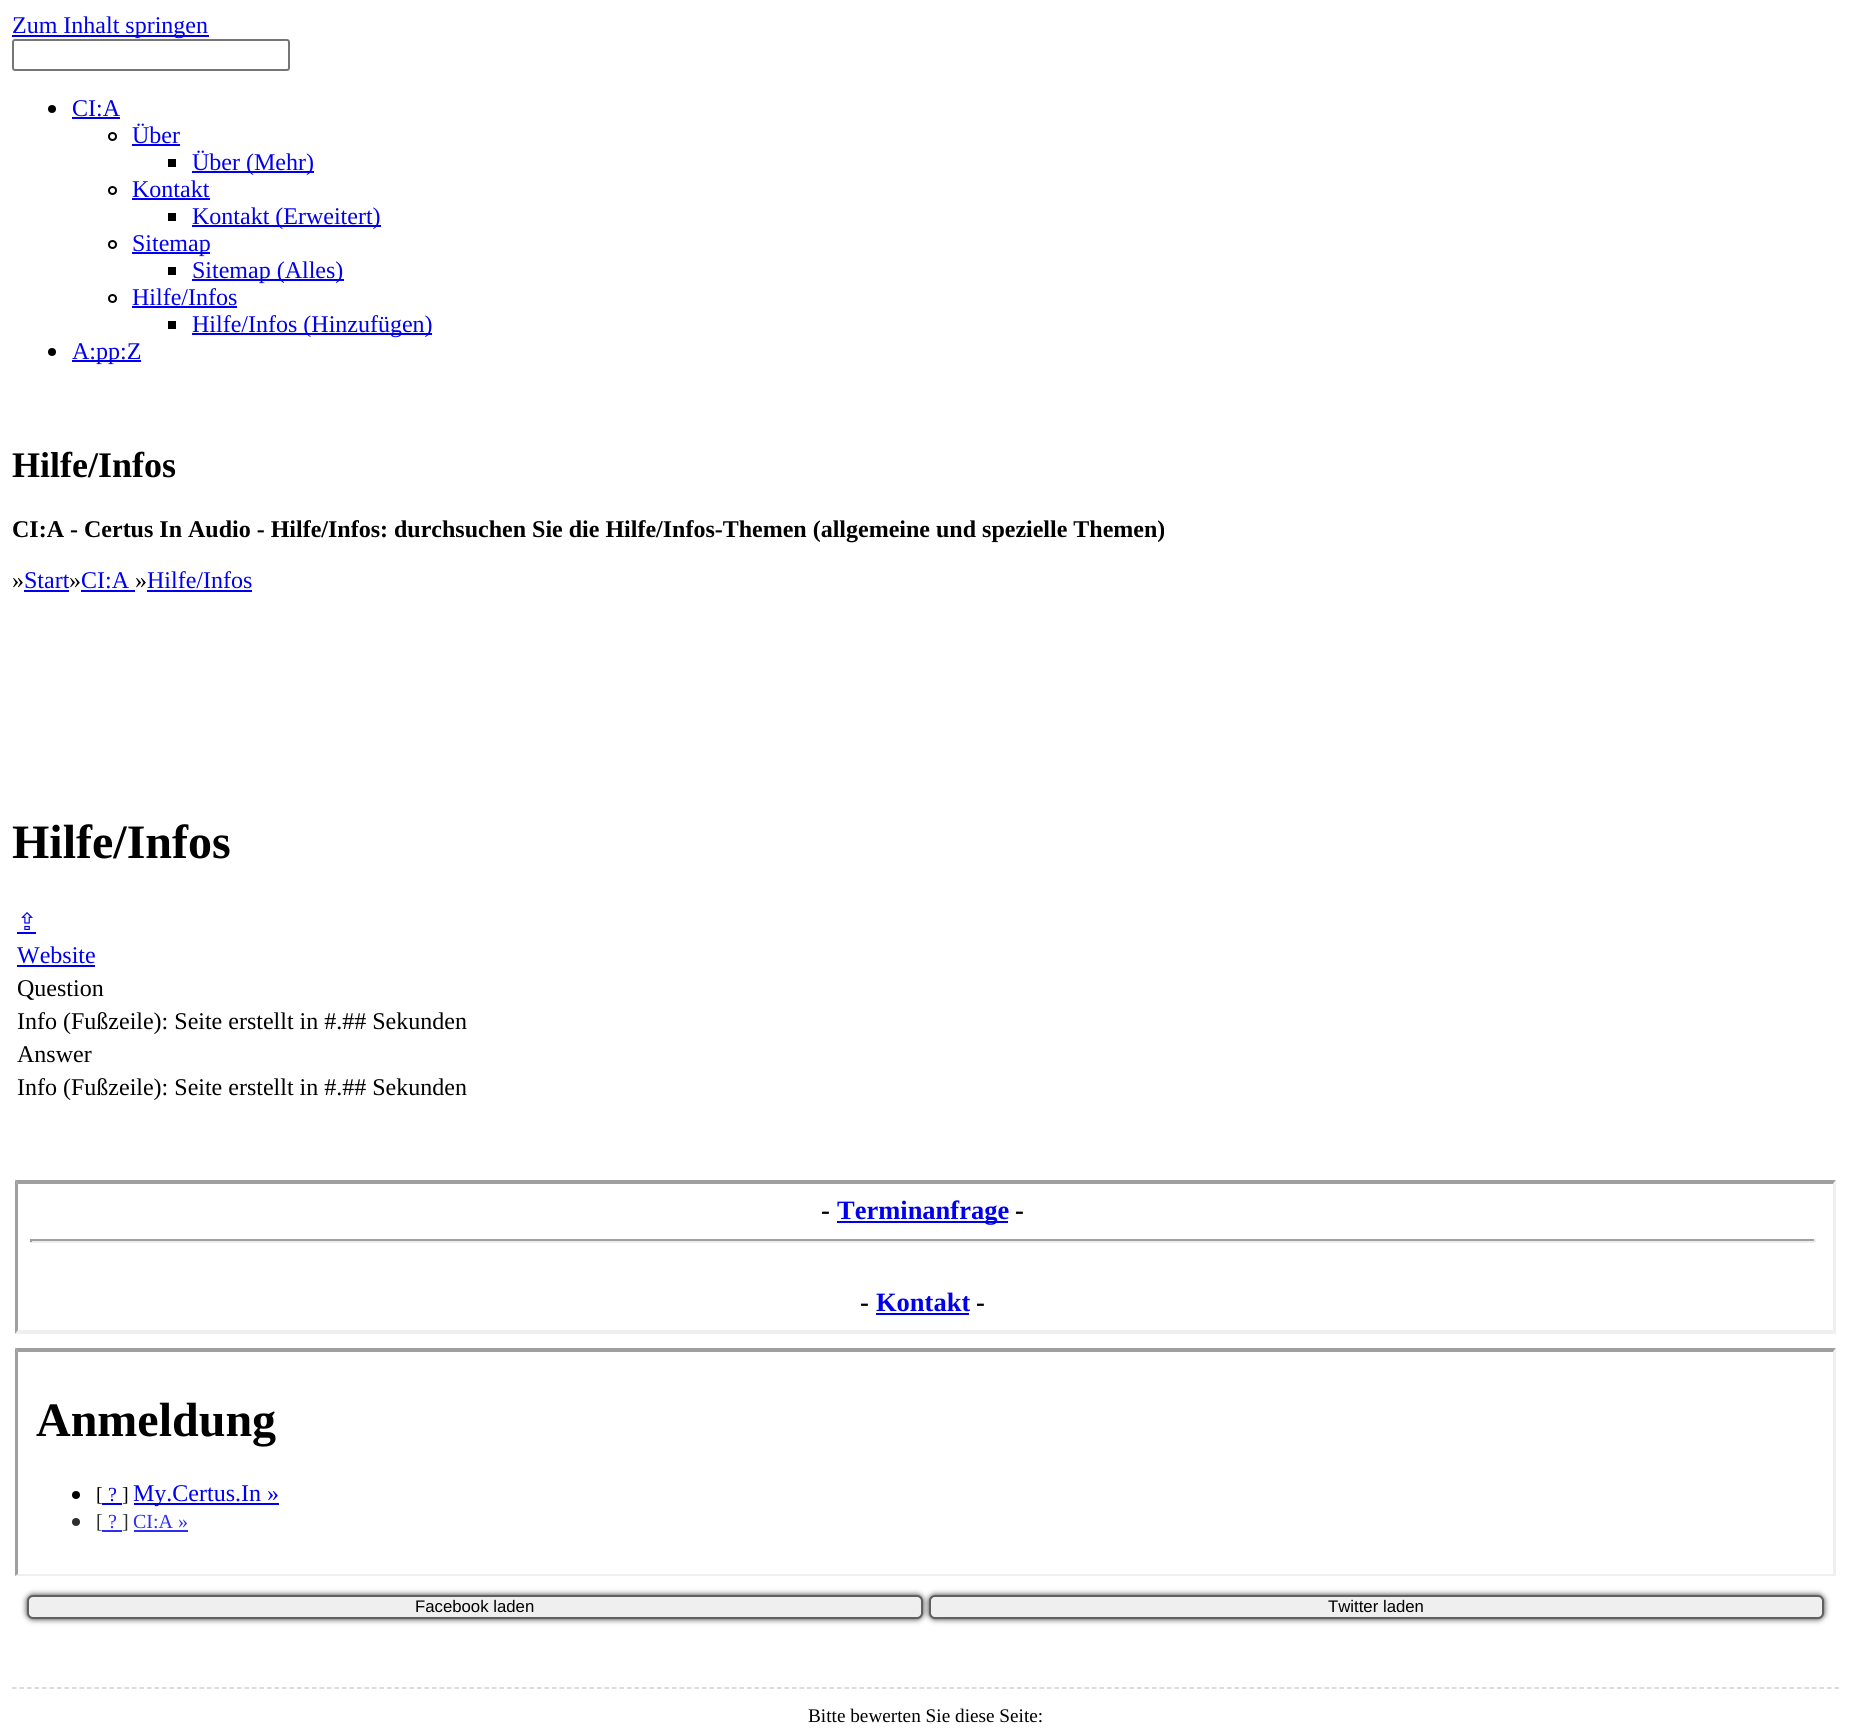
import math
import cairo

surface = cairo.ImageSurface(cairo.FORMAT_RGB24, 1850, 1735)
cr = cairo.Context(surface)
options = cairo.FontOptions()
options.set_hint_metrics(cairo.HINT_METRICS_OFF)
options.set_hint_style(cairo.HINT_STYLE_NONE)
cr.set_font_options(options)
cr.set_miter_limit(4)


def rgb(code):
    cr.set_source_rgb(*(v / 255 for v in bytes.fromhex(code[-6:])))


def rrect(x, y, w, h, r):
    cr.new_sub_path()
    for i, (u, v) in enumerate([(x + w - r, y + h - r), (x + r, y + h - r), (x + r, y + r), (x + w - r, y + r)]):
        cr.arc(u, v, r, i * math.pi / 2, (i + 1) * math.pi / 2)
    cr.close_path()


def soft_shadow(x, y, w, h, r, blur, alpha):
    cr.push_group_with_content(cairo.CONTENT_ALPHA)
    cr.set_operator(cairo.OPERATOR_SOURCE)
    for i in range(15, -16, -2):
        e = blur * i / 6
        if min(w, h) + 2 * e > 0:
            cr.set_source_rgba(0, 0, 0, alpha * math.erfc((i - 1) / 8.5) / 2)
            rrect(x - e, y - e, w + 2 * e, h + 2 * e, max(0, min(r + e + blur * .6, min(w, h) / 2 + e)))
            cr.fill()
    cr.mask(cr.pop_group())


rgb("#ffffff")
cr.paint()
rgb("#0000ee")
cr.rectangle(12, 35, 197, 2)
cr.fill()
rrect(13, 40, 276, 30, 2)
rgb("#767676")
cr.stroke()
rgb("#000000")
cr.arc(52, 109, 4, 0, 2 * math.pi)
cr.fill()
rgb("#0000ee")
cr.rectangle(72, 117, 48, 2)
cr.fill()
cr.arc(112.5, 136.5, 3.5, 0, 2 * math.pi)
rgb("#000000")
cr.stroke()
for x, y, w, h, color in [
    (132, 144, 48, 2, "#0000ee"),
    (168, 159, 8, 8, "#000000"),
    (192, 171, 122, 2, "#0000ee"),
]:
    rgb(color)
    cr.rectangle(x, y, w, h)
    cr.fill()
cr.arc(112.5, 190.5, 3.5, 0, 2 * math.pi)
rgb("#000000")
cr.stroke()
for x, y, w, h, color in [
    (132, 198, 78, 2, "#0000ee"),
    (168, 213, 8, 8, "#000000"),
    (192, 225, 189, 2, "#0000ee"),
]:
    rgb(color)
    cr.rectangle(x, y, w, h)
    cr.fill()
cr.arc(112.5, 244.5, 3.5, 0, 2 * math.pi)
rgb("#000000")
cr.stroke()
for x, y, w, h, color in [
    (132, 252, 78, 2, "#0000ee"),
    (168, 267, 8, 8, "#000000"),
    (192, 279, 152, 2, "#0000ee"),
]:
    rgb(color)
    cr.rectangle(x, y, w, h)
    cr.fill()
cr.arc(112.5, 298.5, 3.5, 0, 2 * math.pi)
rgb("#000000")
cr.stroke()
for x, y, w, h, color in [
    (132, 306, 105, 2, "#0000ee"),
    (168, 321, 8, 8, "#000000"),
    (192, 333, 240, 2, "#0000ee"),
]:
    rgb(color)
    cr.rectangle(x, y, w, h)
    cr.fill()
rgb("#000000")
cr.arc(52, 352, 4, 0, 2 * math.pi)
cr.fill()
for x, y, w, h, color in [
    (72, 360, 69, 2, "#0000ee"),
    (24, 590, 45, 2, "#0000ee"),
    (81, 590, 54, 2, "#0000ee"),
    (147, 590, 105, 2, "#0000ee"),
    (17, 932, 19, 2, "#0000ee"),
    (17, 965, 78, 2, "#0000ee"),
]:
    rgb(color)
    cr.rectangle(x, y, w, h)
    cr.fill()
rgb("#9f9f9f")
cr.new_path()
cr.move_to(15, 1180)
cr.line_to(1836, 1180)
cr.line_to(1833, 1184)
cr.line_to(18, 1184)
cr.close_path()
cr.fill()
rgb("#efefef")
cr.new_path()
cr.move_to(1836, 1180)
cr.line_to(1836, 1334)
cr.line_to(1833, 1330)
cr.line_to(1833, 1184)
cr.close_path()
cr.fill()
cr.new_path()
cr.move_to(1836, 1334)
cr.line_to(15, 1334)
cr.line_to(18, 1330)
cr.line_to(1833, 1330)
cr.close_path()
cr.fill()
rgb("#9f9f9f")
cr.new_path()
cr.move_to(15, 1334)
cr.line_to(15, 1180)
cr.line_to(18, 1184)
cr.line_to(18, 1330)
cr.close_path()
cr.fill()
for x, y, w, h, color in [
    (837, 1221, 171, 2, "#0000ee"),
    (30, 1239, 1785, 2, "#9f9f9f"),
    (1814, 1239, 2, 3, "#eeeeee"),
    (30, 1241, 1785, 2, "#eeeeee"),
    (30, 1239, 2, 3, "#9f9f9f"),
    (876, 1313, 93, 2, "#0000ee"),
]:
    rgb(color)
    cr.rectangle(x, y, w, h)
    cr.fill()
rgb("#9f9f9f")
cr.new_path()
cr.move_to(15, 1348)
cr.line_to(1836, 1348)
cr.line_to(1833, 1352)
cr.line_to(18, 1352)
cr.close_path()
cr.fill()
rgb("#efefef")
cr.new_path()
cr.move_to(1836, 1348)
cr.line_to(1836, 1576)
cr.line_to(1833, 1574)
cr.line_to(1833, 1352)
cr.close_path()
cr.fill()
cr.new_path()
cr.move_to(1836, 1576)
cr.line_to(15, 1576)
cr.line_to(18, 1574)
cr.line_to(1833, 1574)
cr.close_path()
cr.fill()
rgb("#9f9f9f")
cr.new_path()
cr.move_to(15, 1576)
cr.line_to(15, 1348)
cr.line_to(18, 1352)
cr.line_to(18, 1574)
cr.close_path()
cr.fill()
rgb("#000000")
cr.arc(76, 1495, 4, 0, 2 * math.pi)
cr.fill()
rgb("#0000ee")
cr.rectangle(102, 1503, 20, 2)
cr.fill()
cr.rectangle(134, 1503, 145, 2)
cr.fill()
rgb("#2e2e2e")
cr.arc(76, 1522, 4, 0, 2 * math.pi)
cr.fill()
rgb("#2e2ef1")
cr.rectangle(102, 1530, 20, 2)
cr.fill()
cr.rectangle(134, 1530, 54, 2)
cr.fill()
rgb("#303030")
soft_shadow(27, 1595, 896, 24, 6, 3, 1)
rgb("#efefef")
rrect(28, 1596, 894, 22, 5)
cr.fill_preserve()
rgb("#606060")
cr.stroke()
rgb("#303030")
soft_shadow(929, 1595, 895, 24, 6, 3, 1)
rgb("#efefef")
rrect(930, 1596, 893, 22, 5)
cr.fill_preserve()
rgb("#606060")
cr.stroke()
cr.new_path()
cr.move_to(12, 1688)
cr.line_to(1839, 1688)
rgb("#d0d0d0")
cr.set_line_width(1.5)
cr.set_dash([4.5, 3])
cr.stroke()
cr.select_font_face("Liberation Serif")
cr.set_font_size(24)
rgb("#0000ee")
for x, y, s in [
    (12, 33, "Zum Inhalt springen"),
    (72, 116, "CI:A"),
    (132, 143, "Über"),
    (192, 170, "Über (Mehr)"),
    (132, 197, "Kontakt"),
    (192, 224, "Kontakt (Erweitert)"),
    (132, 251, "Sitemap"),
    (192, 278, "Sitemap (Alles)"),
    (132, 305, "Hilfe/Infos"),
    (192, 332, "Hilfe/Infos (Hinzufügen)"),
    (72, 359, "A:pp:Z"),
]:
    cr.move_to(x, y)
    cr.show_text(s)
cr.select_font_face("Liberation Serif", cairo.FONT_SLANT_NORMAL, cairo.FONT_WEIGHT_BOLD)
cr.set_font_size(36)
rgb("#000000")
cr.move_to(12, 477)
cr.show_text("Hilfe/Infos")
cr.set_font_size(24)
cr.move_to(12, 537)
cr.show_text("CI:A - Certus In Audio - Hilfe/Infos: durchsuchen Sie die Hilfe/Infos-Themen (allgemeine und spezielle Themen)")
cr.select_font_face("Liberation Serif")
cr.move_to(12, 588)
cr.show_text("»")
rgb("#0000ee")
cr.move_to(24, 588)
cr.show_text("Start")
rgb("#000000")
cr.move_to(69, 588)
cr.show_text("»")
rgb("#0000ee")
cr.move_to(81, 588)
cr.show_text("CI:A")
rgb("#000000")
cr.move_to(135, 588)
cr.show_text("»")
rgb("#0000ee")
cr.move_to(147, 588)
cr.show_text("Hilfe/Infos")
cr.select_font_face("Liberation Serif", cairo.FONT_SLANT_NORMAL, cairo.FONT_WEIGHT_BOLD)
cr.set_font_size(48)
rgb("#000000")
cr.move_to(12, 858)
cr.show_text("Hilfe/Infos")
cr.select_font_face("DejaVu Sans")
cr.set_font_size(24)
rgb("#0000ee")
cr.move_to(17, 930)
cr.show_text("⇪")
cr.select_font_face("Liberation Serif")
cr.move_to(17, 963)
cr.show_text("Website")
rgb("#000000")
for x, y, s in [
    (17, 996, "Question"),
    (17, 1029, "Info (Fußzeile): Seite erstellt in #.## Sekunden"),
    (17, 1062, "Answer"),
    (17, 1095, "Info (Fußzeile): Seite erstellt in #.## Sekunden"),
]:
    cr.move_to(x, y)
    cr.show_text(s)
cr.select_font_face("Liberation Serif", cairo.FONT_SLANT_NORMAL, cairo.FONT_WEIGHT_BOLD)
cr.set_font_size(26.5)
cr.move_to(821, 1219)
cr.show_text("-")
rgb("#0000ee")
cr.move_to(837, 1219)
cr.show_text("Terminanfrage")
rgb("#000000")
cr.move_to(1015, 1219)
cr.show_text("-")
cr.move_to(860, 1311)
cr.show_text("-")
rgb("#0000ee")
cr.move_to(876, 1311)
cr.show_text("Kontakt")
rgb("#000000")
cr.move_to(976, 1311)
cr.show_text("-")
cr.set_font_size(48)
cr.move_to(36, 1436)
cr.show_text("Anmeldung")
cr.select_font_face("Liberation Serif")
cr.set_font_size(20)
cr.move_to(96, 1501)
cr.show_text("[")
rgb("#0000ee")
cr.move_to(108, 1501)
cr.show_text("?")
rgb("#000000")
cr.move_to(122, 1501)
cr.show_text("]")
cr.set_font_size(24)
rgb("#0000ee")
cr.move_to(133, 1501)
cr.show_text("My.Certus.In »")
cr.set_font_size(20)
rgb("#2e2e2e")
cr.move_to(96, 1528)
cr.show_text("[")
rgb("#2e2ef1")
cr.move_to(108, 1528)
cr.show_text("?")
rgb("#2e2e2e")
cr.move_to(122, 1528)
cr.show_text("]")
rgb("#2e2ef1")
cr.move_to(133, 1528)
cr.show_text("CI:A »")
cr.select_font_face("Liberation Sans")
cr.set_font_size(16.75)
rgb("#000000")
cr.move_to(415, 1612)
cr.show_text("Facebook laden")
cr.move_to(1328, 1612)
cr.show_text("Twitter laden")
cr.select_font_face("Liberation Serif")
cr.set_font_size(19.25)
cr.move_to(808, 1722)
cr.show_text("Bitte bewerten Sie diese Seite:")
surface.write_to_png("page.png")
